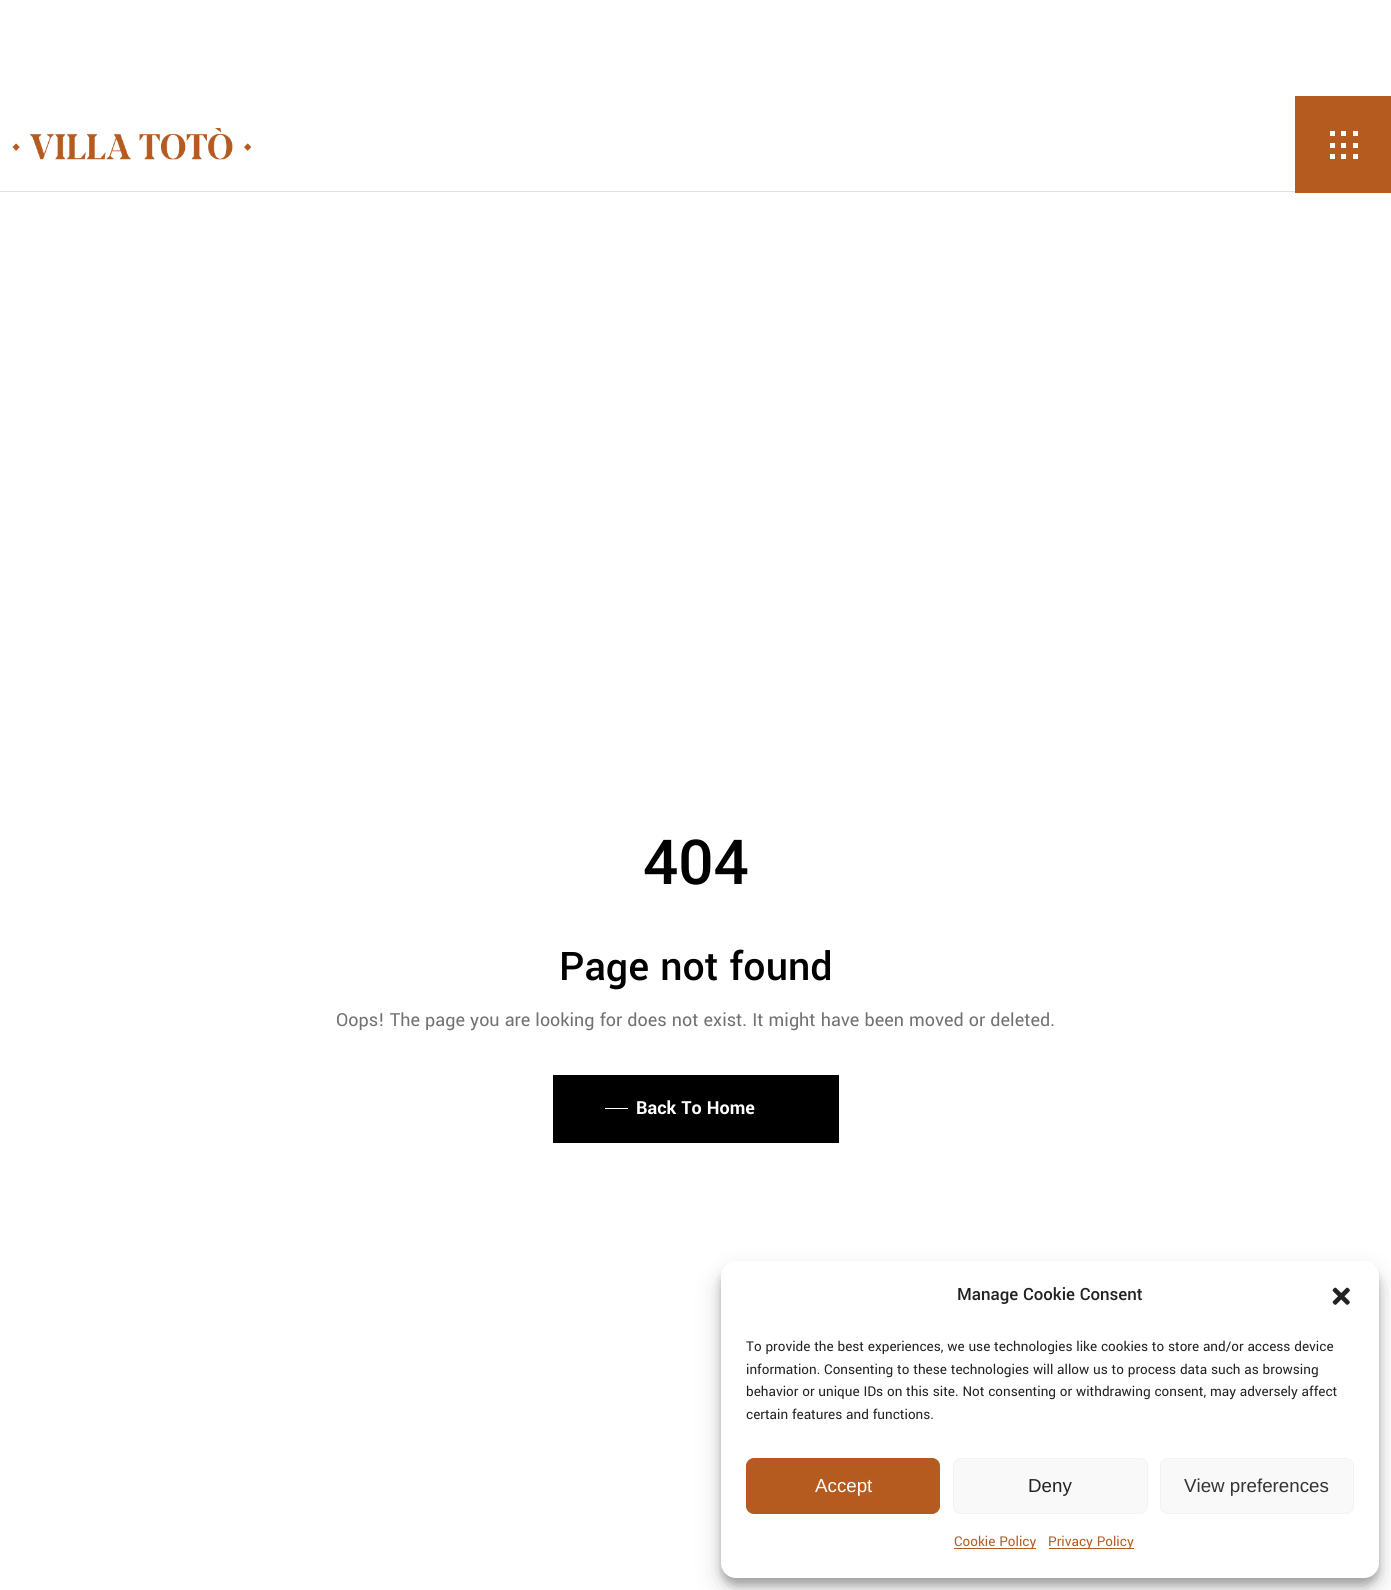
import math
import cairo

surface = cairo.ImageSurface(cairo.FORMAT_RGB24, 1391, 1590)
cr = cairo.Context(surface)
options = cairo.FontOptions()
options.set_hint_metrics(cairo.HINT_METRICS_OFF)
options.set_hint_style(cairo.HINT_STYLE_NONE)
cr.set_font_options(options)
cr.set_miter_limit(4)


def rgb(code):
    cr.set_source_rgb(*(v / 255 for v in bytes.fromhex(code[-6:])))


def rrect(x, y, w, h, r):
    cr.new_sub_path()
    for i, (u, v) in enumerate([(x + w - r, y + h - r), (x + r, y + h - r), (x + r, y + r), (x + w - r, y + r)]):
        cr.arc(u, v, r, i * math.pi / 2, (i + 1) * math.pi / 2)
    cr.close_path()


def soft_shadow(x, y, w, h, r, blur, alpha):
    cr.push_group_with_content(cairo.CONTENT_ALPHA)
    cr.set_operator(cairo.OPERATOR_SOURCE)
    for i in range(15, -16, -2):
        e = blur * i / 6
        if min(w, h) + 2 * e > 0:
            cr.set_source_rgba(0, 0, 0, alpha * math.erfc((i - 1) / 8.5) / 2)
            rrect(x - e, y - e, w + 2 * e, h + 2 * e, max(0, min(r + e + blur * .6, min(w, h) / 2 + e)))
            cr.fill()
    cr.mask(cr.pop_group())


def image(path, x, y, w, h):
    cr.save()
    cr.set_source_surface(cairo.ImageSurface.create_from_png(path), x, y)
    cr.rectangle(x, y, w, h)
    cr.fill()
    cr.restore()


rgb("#ffffff")
cr.paint()
rgb("#e1e1e1")
cr.rectangle(0, 191, 1295, 1)
cr.fill()
image("img/1.png", 12, 128, 240, 32)
for x, y, w, h, color in [
    (1295, 96, 96, 97, "#b55b20"),
    (1330, 131, 5, 5, "#ffffff"),
    (1341, 131, 5, 5, "#ffffff"),
    (1353, 131, 5, 5, "#ffffff"),
    (1330, 143, 5, 5, "#ffffff"),
    (1341, 143, 5, 5, "#ffffff"),
    (1353, 143, 5, 5, "#ffffff"),
    (1330, 154, 5, 5, "#ffffff"),
    (1341, 154, 5, 5, "#ffffff"),
    (1353, 154, 5, 5, "#ffffff"),
    (553, 1075, 286, 68, "#000000"),
    (605, 1108, 23, 1, "#ffffff"),
]:
    rgb(color)
    cr.rectangle(x, y, w, h)
    cr.fill()
rgb("#000000")
soft_shadow(721, 1269, 658, 316, 15, 4, 0.23)
soft_shadow(721, 1274, 658, 316, 15, 12.5, 0.19)
rgb("#ffffff")
rrect(721, 1261, 658, 317, 15)
cr.fill()
image("img/2.png", 1332, 1287, 18, 18)
rgb("#b55b20")
rrect(746.5, 1458.5, 193, 55, 7.5)
cr.fill_preserve()
cr.set_line_width(1)
cr.stroke()
rgb("#f9f9f9")
rrect(953.5, 1458.5, 194, 55, 7.5)
cr.fill_preserve()
rgb("#f2f2f2")
cr.stroke()
rgb("#f9f9f9")
rrect(1160.5, 1458.5, 193, 55, 7.5)
cr.fill_preserve()
rgb("#f2f2f2")
cr.stroke()
rgb("#b55b20")
cr.rectangle(954, 1548, 82, 1)
cr.fill()
cr.rectangle(1049, 1548, 85, 1)
cr.fill()
cr.select_font_face("Yantramanav Medium")
cr.set_font_size(69)
rgb("#000000")
cr.move_to(643, 884)
cr.show_text("404")
cr.set_font_size(43.75)
cr.move_to(559, 980)
cr.show_text("Page not found")
cr.select_font_face("Yantramanav")
cr.set_font_size(20)
rgb("#717171")
cr.move_to(336, 1026)
cr.show_text("Oops! The page you are looking for does not exist. It might have been moved or deleted.")
cr.select_font_face("Yantramanav", cairo.FONT_SLANT_NORMAL, cairo.FONT_WEIGHT_BOLD)
rgb("#ffffff")
cr.move_to(636, 1114)
cr.show_text("Back To Home")
cr.select_font_face("Yantramanav Medium")
cr.set_font_size(18.75)
rgb("#222222")
cr.move_to(957, 1300)
cr.show_text("Manage Cookie Consent")
cr.select_font_face("Yantramanav")
cr.set_font_size(15)
for x, y, s in [
    (746, 1351, "To provide the best experiences, we use technologies like cookies to store and/or access device"),
    (746, 1374, "information. Consenting to these technologies will allow us to process data such as browsing"),
    (746, 1396, "behavior or unique IDs on this site. Not consenting or withdrawing consent, may adversely affect"),
    (746, 1419, "certain features and functions."),
]:
    cr.move_to(x, y)
    cr.show_text(s)
cr.select_font_face("Liberation Sans")
cr.set_font_size(18.75)
rgb("#ffffff")
cr.move_to(815, 1492)
cr.show_text("Accept")
rgb("#222222")
cr.move_to(1028, 1492)
cr.show_text("Deny")
rgb("#333333")
cr.move_to(1184, 1492)
cr.show_text("View preferences")
cr.select_font_face("Yantramanav")
cr.set_font_size(15)
rgb("#b55b20")
cr.move_to(954, 1546)
cr.show_text("Cookie Policy")
cr.move_to(1048, 1546)
cr.show_text("Privacy Policy")
surface.write_to_png("page.png")
